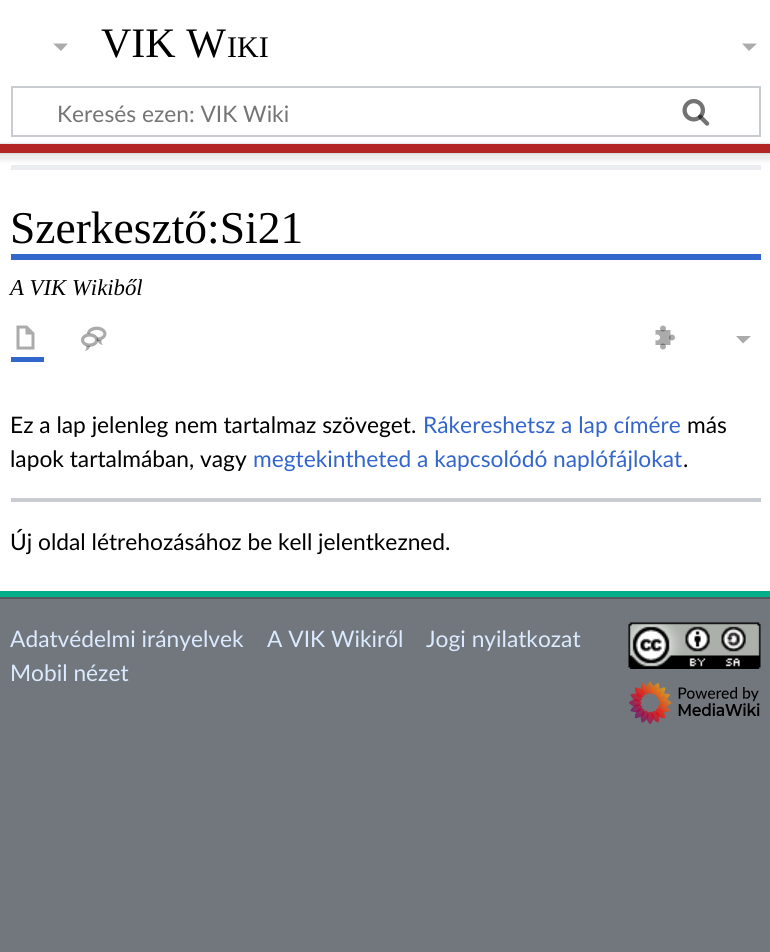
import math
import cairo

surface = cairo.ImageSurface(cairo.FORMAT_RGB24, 770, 952)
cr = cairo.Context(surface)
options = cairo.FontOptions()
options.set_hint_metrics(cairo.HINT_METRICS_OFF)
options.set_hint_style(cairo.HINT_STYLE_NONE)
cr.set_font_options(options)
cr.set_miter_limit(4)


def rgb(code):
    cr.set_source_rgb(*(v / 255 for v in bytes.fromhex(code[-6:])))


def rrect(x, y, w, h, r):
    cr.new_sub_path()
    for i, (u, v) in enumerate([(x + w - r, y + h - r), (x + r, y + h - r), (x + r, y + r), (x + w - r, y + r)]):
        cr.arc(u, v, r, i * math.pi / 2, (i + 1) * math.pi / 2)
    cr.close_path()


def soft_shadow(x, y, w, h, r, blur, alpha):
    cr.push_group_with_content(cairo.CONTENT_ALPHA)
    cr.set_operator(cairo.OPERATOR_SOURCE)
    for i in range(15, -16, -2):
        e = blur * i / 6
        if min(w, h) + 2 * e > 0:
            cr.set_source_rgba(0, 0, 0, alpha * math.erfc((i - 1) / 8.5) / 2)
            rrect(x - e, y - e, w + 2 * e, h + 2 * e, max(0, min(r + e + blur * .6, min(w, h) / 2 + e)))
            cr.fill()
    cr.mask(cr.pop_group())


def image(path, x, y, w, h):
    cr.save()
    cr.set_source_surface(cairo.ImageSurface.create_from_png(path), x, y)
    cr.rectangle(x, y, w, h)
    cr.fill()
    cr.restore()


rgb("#72777d")
cr.paint()
rgb("#ffffff")
cr.rectangle(0, 0, 770, 144)
cr.fill()
rgb("#ababab")
cr.new_path()
cr.move_to(757, 43.5)
cr.line_to(749, 51)
cr.line_to(742, 43.5)
cr.close_path()
cr.fill()
cr.rectangle(12, 87, 748, 49)
rgb("#c8ccd1")
cr.stroke()
image("img/1.png", 682, 99, 28, 27)
image("img/2.png", 682, 99, 28, 27)
rgb("#ffffff")
cr.rectangle(0, 153, 770, 438)
cr.fill()
rgb("#000000")
soft_shadow(0, 144, 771, 9, 0, 1.5, 0.2)
for x, y, w, h, color in [
    (11, 165, 750, 2, "#eaecf0"),
    (759, 165, 2, 5, "#eaecf0"),
    (11, 167, 750, 3, "#eaecf0"),
]:
    rgb(color)
    cr.rectangle(x, y, w, h)
    cr.fill()
rgb("#000000")
soft_shadow(-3, 146, 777, 15, 0, 2, 0.07)
rgb("#b32424")
cr.rectangle(0, 144, 770, 9)
cr.fill()
rgb("#00af89")
cr.rectangle(0, 591, 770, 6)
cr.fill()
rgb("#ababab")
cr.new_path()
cr.move_to(68, 43.5)
cr.line_to(61, 51)
cr.line_to(53, 43.5)
cr.close_path()
cr.fill()
rgb("#3366cc")
cr.rectangle(11, 254, 750, 6)
cr.fill()
cr.rectangle(11, 357, 33, 5)
cr.fill()
image("img/3.png", 16, 325, 19, 25)
image("img/4.png", 81, 326, 26, 25)
image("img/5.png", 655, 325, 20, 25)
rgb("#ababab")
cr.new_path()
cr.move_to(751, 336)
cr.line_to(743, 343.5)
cr.line_to(736, 336)
cr.close_path()
cr.fill()
rgb("#c8ccd1")
cr.rectangle(11, 498, 750, 4)
cr.fill()
rgb("#54595d")
cr.rectangle(0, 597, 770, 2)
cr.fill()
image("img/6.png", 628, 622, 133, 47)
image("img/7.png", 629, 681, 131, 44)
cr.select_font_face("Liberation Serif")
cr.set_font_size(42)
rgb("#000000")
cr.move_to(101, 57)
cr.show_text("VIK W")
cr.set_font_size(30)
cr.move_to(227, 57)
cr.show_text("IKI")
cr.select_font_face("Lato")
cr.set_font_size(22.75)
rgb("#757575")
cr.move_to(57, 122)
cr.show_text("Keresés ezen: VIK Wiki")
cr.select_font_face("Liberation Serif")
cr.set_font_size(45.5)
rgb("#000000")
cr.move_to(10, 243)
cr.show_text("Szerkesztő:Si21")
cr.select_font_face("Liberation Serif", cairo.FONT_SLANT_ITALIC)
cr.set_font_size(22.75)
cr.move_to(10, 295)
cr.show_text("A VIK Wikiből")
cr.select_font_face("Lato")
cr.move_to(10, 433)
cr.show_text("Ez a lap jelenleg nem tartalmaz szöveget.")
rgb("#3366cc")
cr.move_to(423, 433)
cr.show_text("Rákereshetsz a lap címére")
rgb("#000000")
cr.move_to(687, 433)
cr.show_text("más")
cr.move_to(10, 467)
cr.show_text("lapok tartalmában, vagy")
rgb("#3366cc")
cr.move_to(253, 467)
cr.show_text("megtekintheted a kapcsolódó naplófájlokat")
rgb("#000000")
cr.move_to(683, 467)
cr.show_text(".")
cr.move_to(10, 550)
cr.show_text("Új oldal létrehozásához be kell jelentkezned.")
rgb("#dbeaff")
for x, y, s in [
    (10, 647, "Adatvédelmi irányelvek"),
    (267, 647, "A VIK Wikiről"),
    (426, 647, "Jogi nyilatkozat"),
    (10, 681, "Mobil nézet"),
]:
    cr.move_to(x, y)
    cr.show_text(s)
surface.write_to_png("page.png")
